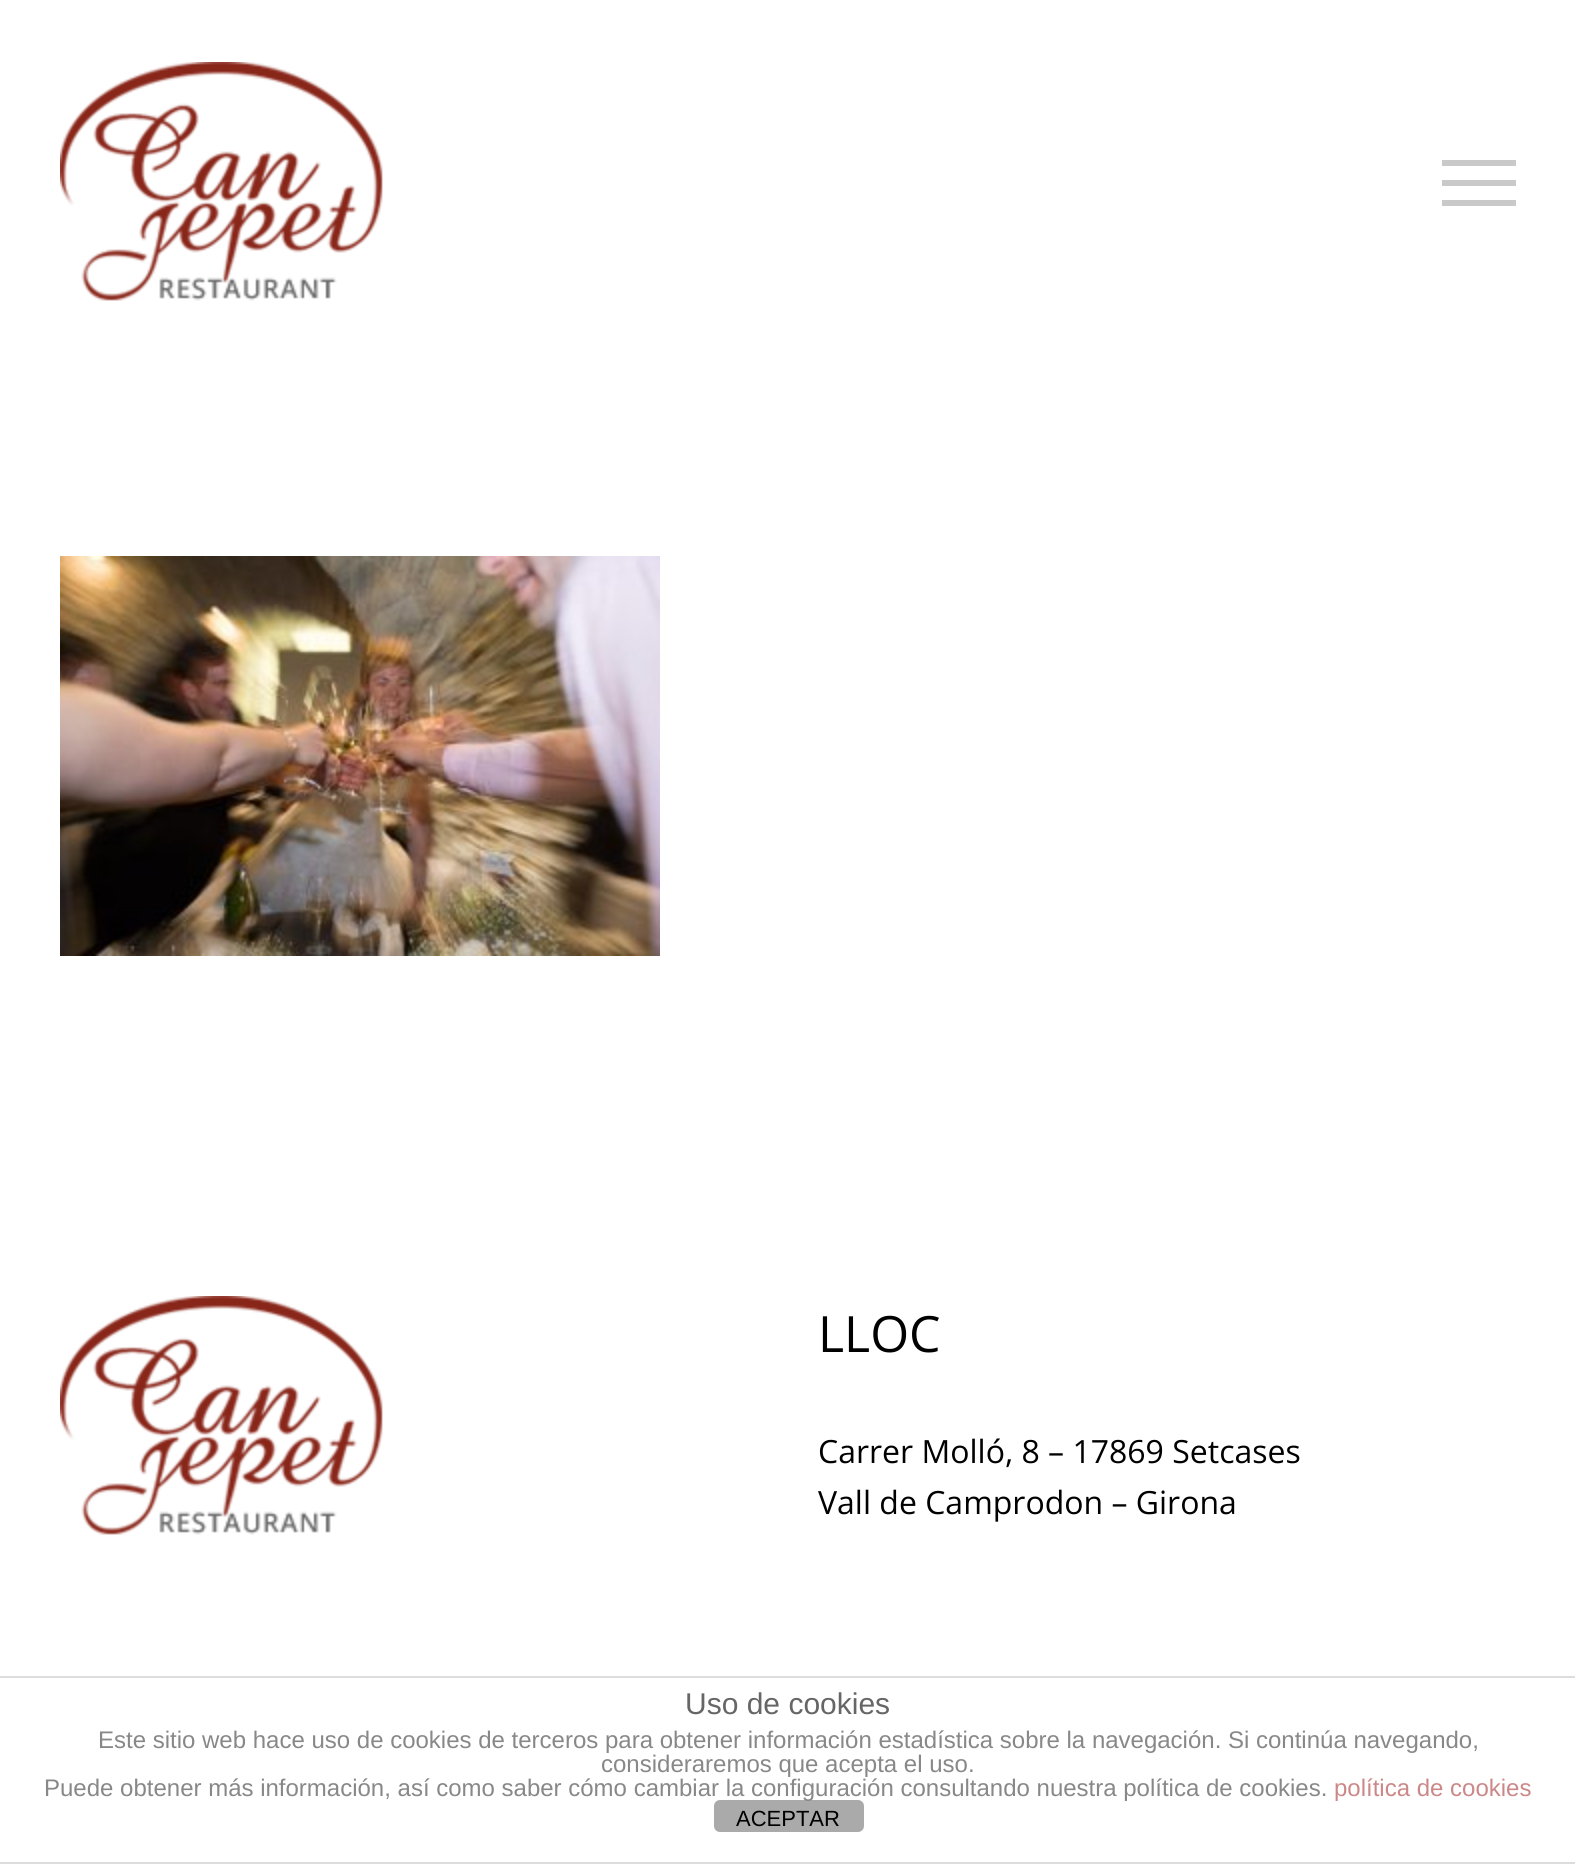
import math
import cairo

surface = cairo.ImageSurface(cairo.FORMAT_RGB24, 1575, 1864)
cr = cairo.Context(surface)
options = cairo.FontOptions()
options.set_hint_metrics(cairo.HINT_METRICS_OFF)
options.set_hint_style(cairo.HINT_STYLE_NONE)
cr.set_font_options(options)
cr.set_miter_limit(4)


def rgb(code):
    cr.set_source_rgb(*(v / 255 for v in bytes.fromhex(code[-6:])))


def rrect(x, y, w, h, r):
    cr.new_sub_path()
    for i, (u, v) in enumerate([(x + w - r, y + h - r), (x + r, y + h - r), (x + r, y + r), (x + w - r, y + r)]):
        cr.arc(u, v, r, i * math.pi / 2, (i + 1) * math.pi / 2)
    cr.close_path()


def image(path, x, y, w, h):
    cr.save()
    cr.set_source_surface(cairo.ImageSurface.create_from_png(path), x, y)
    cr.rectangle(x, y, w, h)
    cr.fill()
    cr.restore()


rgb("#ffffff")
cr.paint()
image("img/1.png", 60, 62, 323, 239)
for x, y, w, h, color in [
    (1442, 160, 74, 6, "#c9c9c9"),
    (1442, 180, 74, 6, "#c9c9c9"),
    (1442, 200, 74, 6, "#c9c9c9"),
]:
    rgb(color)
    cr.rectangle(x, y, w, h)
    cr.fill()
image("img/2.png", 60, 556, 600, 400)
image("img/1.png", 60, 1296, 323, 239)
rgb("#dddddd")
cr.rectangle(0, 1676, 1575, 2)
cr.fill()
cr.rectangle(0, 1862, 1575, 2)
cr.fill()
rgb("#aaaaaa")
rrect(714, 1800, 150, 32, 6)
cr.fill()
cr.select_font_face("Open Sans")
cr.set_font_size(50)
rgb("#000000")
cr.move_to(818, 1352)
cr.show_text("LLOC")
cr.set_font_size(32)
cr.move_to(818, 1463)
cr.show_text("Carrer Molló, 8 – 17869 Setcases")
cr.move_to(818, 1514)
cr.show_text("Vall de Camprodon – Girona")
cr.select_font_face("Liberation Sans")
cr.set_font_size(30)
rgb("#666666")
cr.move_to(685, 1714)
cr.show_text("Uso de cookies")
cr.set_font_size(24)
rgb("#888888")
for x, y, s in [
    (98, 1748, "Este sitio web hace uso de cookies de terceros para obtener información estadística sobre la navegación. Si continúa navegando,"),
    (601, 1772, "consideraremos que acepta el uso."),
    (44, 1796, "Puede obtener más información, así como saber cómo cambiar la configuración consultando nuestra política de cookies."),
]:
    cr.move_to(x, y)
    cr.show_text(s)
rgb("#cc8888")
cr.move_to(1334, 1796)
cr.show_text("política de cookies")
cr.set_font_size(22)
rgb("#000000")
cr.move_to(736, 1826)
cr.show_text("ACEPTAR")
surface.write_to_png("page.png")
